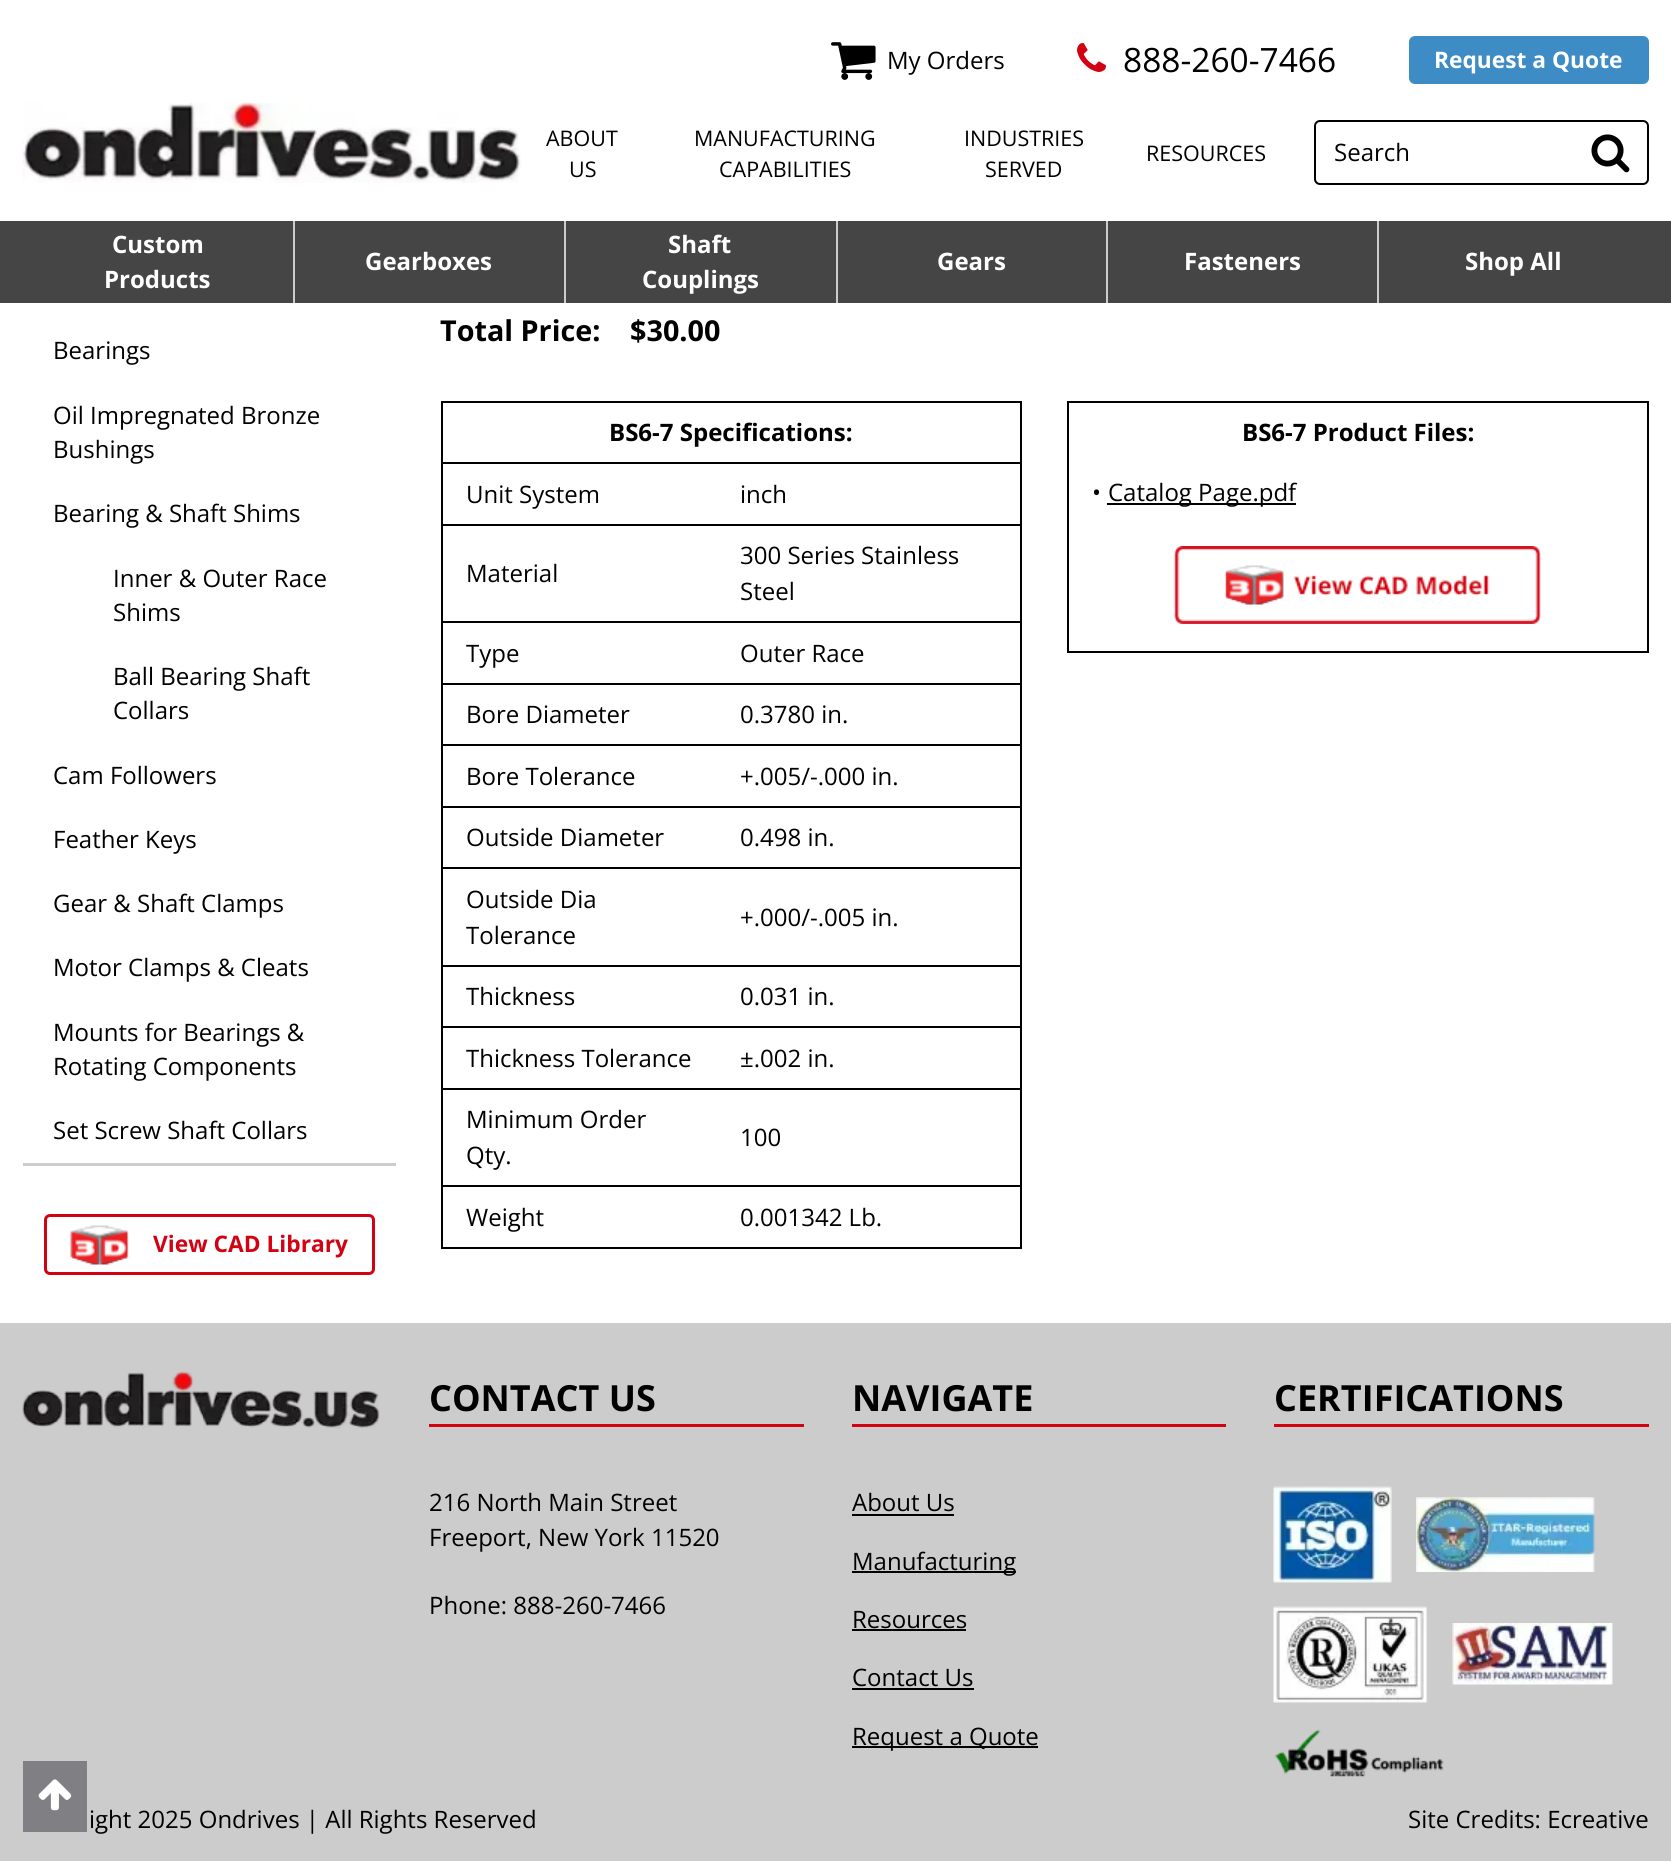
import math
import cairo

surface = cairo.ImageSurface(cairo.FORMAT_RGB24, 1671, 1861)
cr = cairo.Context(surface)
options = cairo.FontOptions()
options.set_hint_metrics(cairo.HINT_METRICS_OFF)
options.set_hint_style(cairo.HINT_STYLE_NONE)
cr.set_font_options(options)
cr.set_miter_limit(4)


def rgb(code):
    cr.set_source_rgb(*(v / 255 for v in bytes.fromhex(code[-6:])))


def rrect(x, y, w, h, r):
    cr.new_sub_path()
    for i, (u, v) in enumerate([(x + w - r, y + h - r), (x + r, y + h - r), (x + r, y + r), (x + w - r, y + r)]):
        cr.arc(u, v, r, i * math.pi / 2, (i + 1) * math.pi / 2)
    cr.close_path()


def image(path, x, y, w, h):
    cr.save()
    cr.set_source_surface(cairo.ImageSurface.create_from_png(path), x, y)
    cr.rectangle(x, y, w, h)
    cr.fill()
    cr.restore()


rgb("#ffffff")
cr.paint()
image("img/1.png", 22, 102, 499, 81)
image("img/2.png", 831, 42, 45, 38)
image("img/3.png", 1077, 43, 29, 29)
rgb("#3d8cc5")
rrect(1410.5, 37.5, 237, 45, 4.5)
cr.fill_preserve()
cr.set_line_width(3)
cr.stroke()
rrect(1315, 121, 333, 63, 5)
rgb("#000000")
cr.set_line_width(2)
cr.stroke()
image("img/4.png", 1591, 134, 39, 39)
for x, y, w, h, color in [
    (0, 221, 1671, 82, "#464545"),
    (293, 221, 2, 82, "#cccccc"),
    (564, 221, 2, 82, "#cccccc"),
    (836, 221, 2, 82, "#cccccc"),
    (1106, 221, 2, 82, "#cccccc"),
    (1377, 221, 2, 82, "#cccccc"),
    (23, 1163, 373, 3, "#cccccc"),
]:
    rgb(color)
    cr.rectangle(x, y, w, h)
    cr.fill()
rrect(45.5, 1215.5, 328, 58, 4.5)
rgb("#d20212")
cr.set_line_width(3)
cr.stroke()
image("img/5.png", 70, 1225, 59, 40)
for x, y, w, h, color in [
    (441, 401, 581, 2, "#000000"),
    (1020, 401, 2, 847, "#000000"),
    (441, 1247, 581, 2, "#000000"),
    (441, 401, 2, 847, "#000000"),
    (441, 462, 581, 2, "#000000"),
    (441, 524, 581, 2, "#000000"),
    (441, 621, 581, 2, "#000000"),
    (441, 683, 581, 2, "#000000"),
    (441, 744, 581, 2, "#000000"),
    (441, 806, 581, 2, "#000000"),
    (441, 867, 581, 2, "#000000"),
    (441, 965, 581, 2, "#000000"),
    (441, 1026, 581, 2, "#000000"),
    (441, 1088, 581, 2, "#000000"),
    (441, 1185, 581, 2, "#000000"),
    (1067, 401, 582, 2, "#000000"),
    (1647, 401, 2, 252, "#000000"),
    (1067, 651, 582, 2, "#000000"),
    (1067, 401, 2, 252, "#000000"),
    (1107, 503, 189, 2, "#000000"),
]:
    rgb(color)
    cr.rectangle(x, y, w, h)
    cr.fill()
image("img/6.png", 1174, 546, 367, 78)
rgb("#cccccc")
cr.rectangle(0, 1323, 1671, 538)
cr.fill()
rgb("#807f83")
cr.rectangle(23, 1761, 64, 71)
cr.fill()
image("img/7.png", 38, 1779, 34, 32)
image("img/8.png", 22, 1371, 358, 58)
for x, y, w, h, color in [
    (429, 1424, 375, 3, "#d20212"),
    (852, 1424, 374, 3, "#d20212"),
    (852, 1514, 102, 2, "#000000"),
    (852, 1571, 164, 2, "#000000"),
    (852, 1629, 114, 2, "#000000"),
    (852, 1688, 122, 2, "#000000"),
    (852, 1746, 186, 2, "#000000"),
    (1274, 1424, 375, 3, "#d20212"),
]:
    rgb(color)
    cr.rectangle(x, y, w, h)
    cr.fill()
image("img/9.png", 1273, 1486, 119, 97)
image("img/10.png", 1416, 1497, 179, 75)
image("img/11.png", 1273, 1606, 155, 97)
image("img/12.png", 1452, 1623, 161, 62)
image("img/13.png", 1274, 1729, 170, 48)
cr.select_font_face("Open Sans")
cr.set_font_size(24)
rgb("#000000")
cr.move_to(887, 69)
cr.show_text("My Orders")
cr.set_font_size(33.5)
cr.move_to(1123, 72)
cr.show_text("888-260-7466")
cr.select_font_face("Open Sans", cairo.FONT_SLANT_NORMAL, cairo.FONT_WEIGHT_BOLD)
cr.set_font_size(22.75)
rgb("#ffffff")
cr.move_to(1434, 68)
cr.show_text("Request a Quote")
cr.select_font_face("Open Sans")
cr.set_font_size(21.5)
rgb("#000000")
for x, y, s in [
    (546, 146, "ABOUT"),
    (569, 177, "US"),
    (694, 146, "MANUFACTURING"),
    (719, 177, "CAPABILITIES"),
    (964, 146, "INDUSTRIES"),
    (985, 177, "SERVED"),
    (1146, 161, "RESOURCES"),
]:
    cr.move_to(x, y)
    cr.show_text(s)
cr.set_font_size(24)
cr.move_to(1334, 161)
cr.show_text("Search")
cr.select_font_face("Open Sans", cairo.FONT_SLANT_NORMAL, cairo.FONT_WEIGHT_BOLD)
rgb("#ffffff")
for x, y, s in [
    (112, 253, "Custom"),
    (104, 288, "Products"),
    (365, 270, "Gearboxes"),
    (668, 253, "Shaft"),
    (642, 288, "Couplings"),
    (937, 270, "Gears"),
    (1184, 270, "Fasteners"),
    (1465, 270, "Shop All"),
]:
    cr.move_to(x, y)
    cr.show_text(s)
cr.select_font_face("Open Sans")
rgb("#000000")
for x, y, s in [
    (53, 359, "Bearings"),
    (53, 424, "Oil Impregnated Bronze"),
    (53, 458, "Bushings"),
    (53, 522, "Bearing & Shaft Shims"),
    (113, 587, "Inner & Outer Race"),
    (113, 621, "Shims"),
    (113, 685, "Ball Bearing Shaft"),
    (113, 719, "Collars"),
    (53, 784, "Cam Followers"),
    (53, 848, "Feather Keys"),
    (53, 912, "Gear & Shaft Clamps"),
    (53, 976, "Motor Clamps & Cleats"),
    (53, 1041, "Mounts for Bearings &"),
    (53, 1075, "Rotating Components"),
    (53, 1139, "Set Screw Shaft Collars"),
]:
    cr.move_to(x, y)
    cr.show_text(s)
cr.select_font_face("Open Sans", cairo.FONT_SLANT_NORMAL, cairo.FONT_WEIGHT_BOLD)
cr.set_font_size(22.75)
rgb("#d20212")
cr.move_to(153, 1252)
cr.show_text("View CAD Library")
cr.set_font_size(28.75)
rgb("#000000")
cr.move_to(440, 341)
cr.show_text("Total Price:")
cr.move_to(630, 341)
cr.show_text("$30.00")
cr.set_font_size(24)
cr.move_to(609, 441)
cr.show_text("BS6-7 Specifications:")
cr.select_font_face("Open Sans")
for x, y, s in [
    (466, 503, "Unit System"),
    (740, 503, "inch"),
    (466, 582, "Material"),
    (740, 564, "300 Series Stainless"),
    (740, 600, "Steel"),
    (466, 662, "Type"),
    (740, 662, "Outer Race"),
    (466, 723, "Bore Diameter"),
    (740, 723, "0.3780 in."),
    (466, 785, "Bore Tolerance"),
    (740, 785, "+.005/-.000 in."),
    (466, 846, "Outside Diameter"),
    (740, 846, "0.498 in."),
    (466, 908, "Outside Dia"),
    (466, 944, "Tolerance"),
    (740, 926, "+.000/-.005 in."),
    (466, 1005, "Thickness"),
    (740, 1005, "0.031 in."),
    (466, 1067, "Thickness Tolerance"),
    (740, 1067, "±.002 in."),
    (466, 1128, "Minimum Order"),
    (466, 1164, "Qty."),
    (740, 1146, "100"),
    (466, 1226, "Weight"),
    (740, 1226, "0.001342 Lb."),
]:
    cr.move_to(x, y)
    cr.show_text(s)
cr.select_font_face("Open Sans", cairo.FONT_SLANT_NORMAL, cairo.FONT_WEIGHT_BOLD)
cr.move_to(1242, 441)
cr.show_text("BS6-7 Product Files:")
cr.select_font_face("Open Sans")
cr.move_to(1092, 501)
cr.show_text("•")
cr.move_to(1108, 501)
cr.show_text("Catalog Page.pdf")
cr.select_font_face("Open Sans", cairo.FONT_SLANT_NORMAL, cairo.FONT_WEIGHT_BOLD)
cr.set_font_size(36)
cr.move_to(429, 1411)
cr.show_text("CONTACT US")
cr.select_font_face("Open Sans")
cr.set_font_size(24)
for x, y, s in [
    (429, 1511, "216 North Main Street"),
    (429, 1546, "Freeport, New York 11520"),
    (429, 1614, "Phone: 888-260-7466"),
]:
    cr.move_to(x, y)
    cr.show_text(s)
cr.select_font_face("Open Sans", cairo.FONT_SLANT_NORMAL, cairo.FONT_WEIGHT_BOLD)
cr.set_font_size(36)
cr.move_to(852, 1411)
cr.show_text("NAVIGATE")
cr.select_font_face("Open Sans")
cr.set_font_size(24)
for x, y, s in [
    (852, 1511, "About Us"),
    (852, 1570, "Manufacturing"),
    (852, 1628, "Resources"),
    (852, 1686, "Contact Us"),
    (852, 1745, "Request a Quote"),
]:
    cr.move_to(x, y)
    cr.show_text(s)
cr.select_font_face("Open Sans", cairo.FONT_SLANT_NORMAL, cairo.FONT_WEIGHT_BOLD)
cr.set_font_size(36)
cr.move_to(1274, 1411)
cr.show_text("CERTIFICATIONS")
cr.select_font_face("Open Sans")
cr.set_font_size(24)
cr.move_to(89, 1828)
cr.show_text("ight 2025 Ondrives | All Rights Reserved")
cr.move_to(1408, 1828)
cr.show_text("Site Credits: Ecreative")
surface.write_to_png("page.png")
